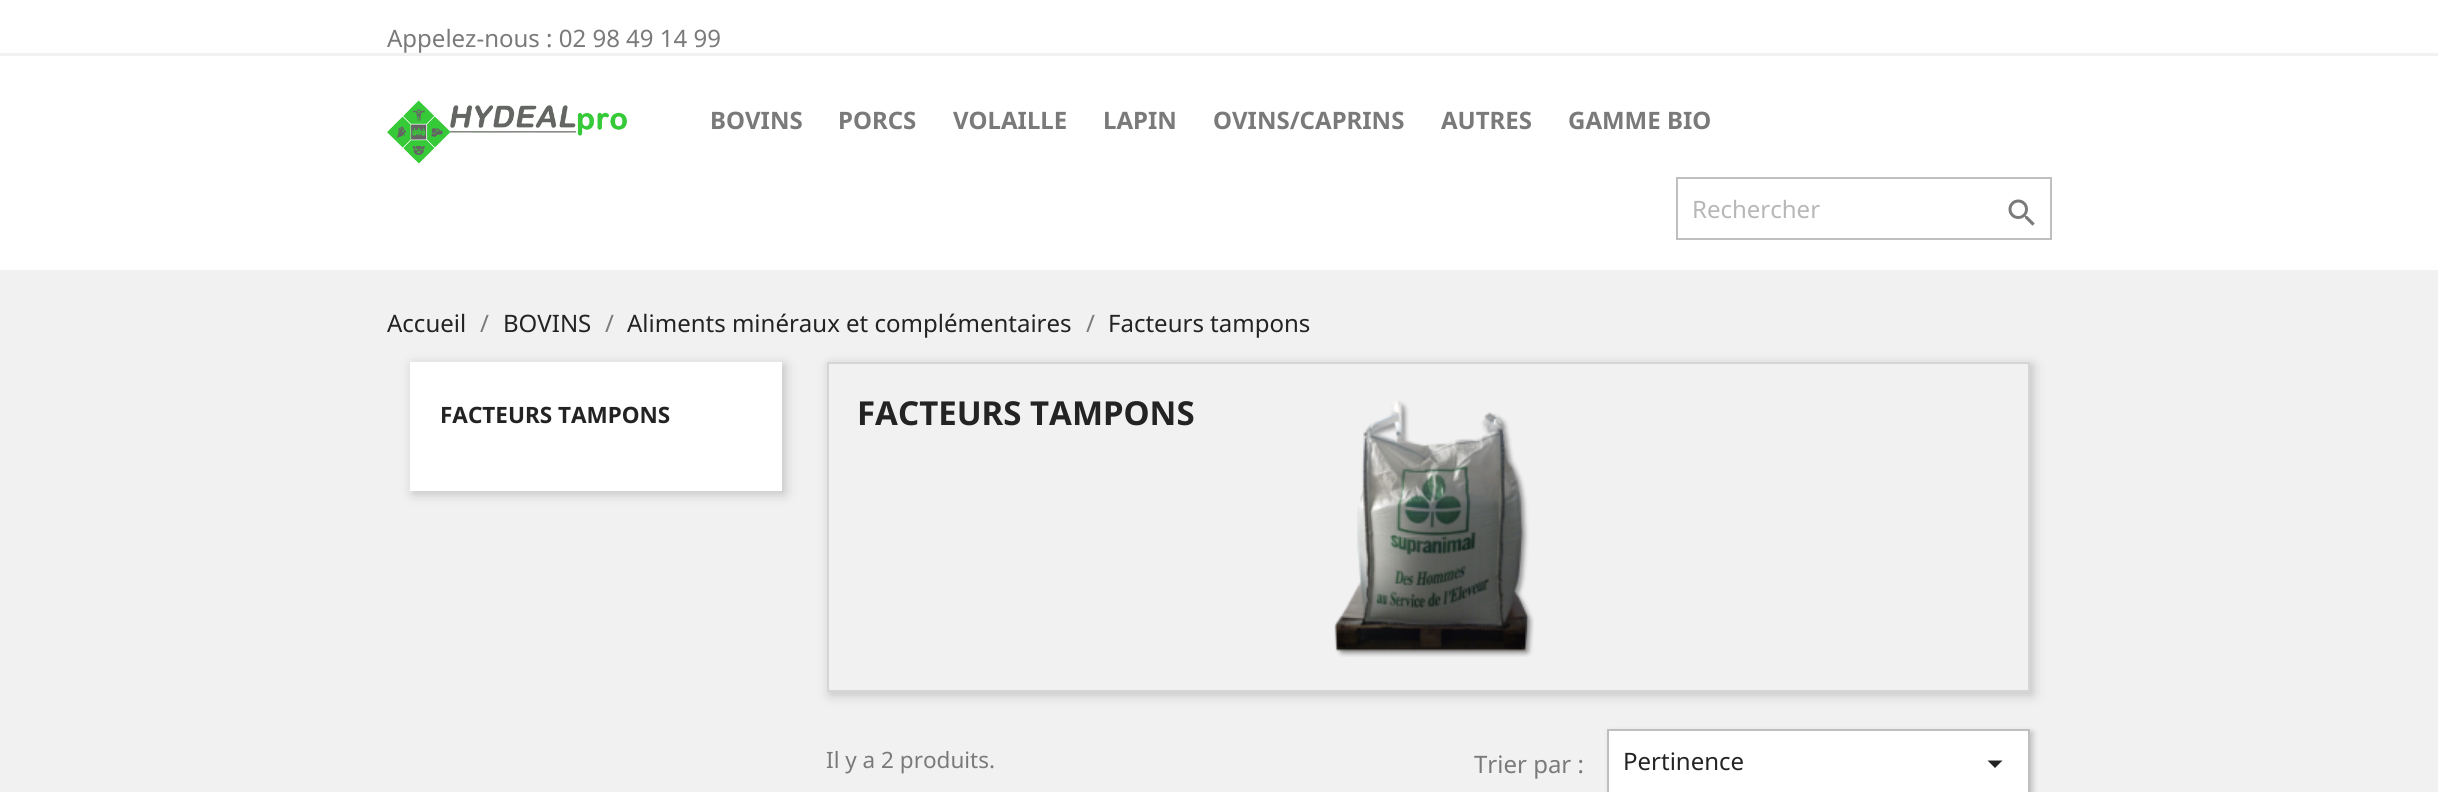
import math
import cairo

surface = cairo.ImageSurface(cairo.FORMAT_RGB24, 2438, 792)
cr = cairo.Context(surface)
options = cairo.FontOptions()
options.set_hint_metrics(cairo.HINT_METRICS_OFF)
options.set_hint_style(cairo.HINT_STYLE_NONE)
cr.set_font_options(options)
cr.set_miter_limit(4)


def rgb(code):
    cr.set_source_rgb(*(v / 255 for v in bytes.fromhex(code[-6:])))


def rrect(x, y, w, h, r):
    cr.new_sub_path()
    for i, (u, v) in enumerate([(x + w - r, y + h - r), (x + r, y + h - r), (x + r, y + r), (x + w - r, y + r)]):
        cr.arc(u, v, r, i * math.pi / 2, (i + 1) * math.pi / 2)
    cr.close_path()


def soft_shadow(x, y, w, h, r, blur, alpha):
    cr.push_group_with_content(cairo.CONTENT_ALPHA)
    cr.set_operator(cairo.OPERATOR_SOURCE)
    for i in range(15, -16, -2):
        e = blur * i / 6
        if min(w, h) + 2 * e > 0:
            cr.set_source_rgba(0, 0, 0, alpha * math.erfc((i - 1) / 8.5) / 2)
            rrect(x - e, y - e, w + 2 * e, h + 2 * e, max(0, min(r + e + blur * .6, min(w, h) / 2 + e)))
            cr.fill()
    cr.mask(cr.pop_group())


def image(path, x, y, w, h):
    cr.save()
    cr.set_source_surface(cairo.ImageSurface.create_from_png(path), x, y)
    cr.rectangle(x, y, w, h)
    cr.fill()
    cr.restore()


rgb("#ffffff")
cr.paint()
rgb("#f1f1f1")
cr.rectangle(0, 53, 2438, 3)
cr.fill()
image("img/1.png", 387, 100, 240, 64)
cr.rectangle(1677, 178, 374, 61)
rgb("#bfbfbf")
cr.stroke()
image("img/2.png", 2008, 199, 27, 27)
rgb("#f1f1f1")
cr.rectangle(0, 270, 2438, 522)
cr.fill()
rgb("#000000")
soft_shadow(413, 365, 372, 129, 0, 6, 0.2)
rgb("#ffffff")
cr.rectangle(410, 362, 372, 129)
cr.fill()
cr.save()
cr.set_fill_rule(cairo.FILL_RULE_EVEN_ODD)
cr.new_path()
cr.move_to(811, 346)
cr.line_to(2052, 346)
cr.line_to(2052, 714)
cr.line_to(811, 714)
cr.close_path()
cr.move_to(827, 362)
cr.line_to(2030, 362)
cr.line_to(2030, 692)
cr.line_to(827, 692)
cr.close_path()
cr.clip()
rgb("#000000")
soft_shadow(830, 365, 1203, 330, 0, 6, 0.2)
cr.restore()
image("img/3.png", 1334, 400, 200, 257)
cr.rectangle(828, 363, 1201, 328)
cr.set_source_rgba(0, 0, 0, 0.12)
cr.stroke()
rgb("#000000")
soft_shadow(1610, 732, 423, 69, 0, 3, 0.2)
rgb("#ffffff")
cr.rectangle(1608, 730, 421, 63)
cr.fill_preserve()
rgb("#bfbfbf")
cr.stroke()
rgb("#232323")
cr.new_path()
cr.move_to(1987.5, 760.5)
cr.line_to(2002.5, 760.5)
cr.line_to(1995, 768)
cr.close_path()
cr.fill()
cr.select_font_face("Noto Sans")
cr.set_font_size(24)
rgb("#7a7a7a")
cr.move_to(387, 47)
cr.show_text("Appelez-nous : 02 98 49 14 99")
cr.select_font_face("Noto Sans", cairo.FONT_SLANT_NORMAL, cairo.FONT_WEIGHT_BOLD)
for x, y, s in [
    (710, 129, "BOVINS"),
    (838, 129, "PORCS"),
    (953, 129, "VOLAILLE"),
    (1103, 129, "LAPIN"),
    (1213, 129, "OVINS/CAPRINS"),
    (1441, 129, "AUTRES"),
    (1568, 129, "GAMME BIO"),
]:
    cr.move_to(x, y)
    cr.show_text(s)
cr.select_font_face("Noto Sans")
rgb("#b7b7b7")
cr.move_to(1692, 218)
cr.show_text("Rechercher")
rgb("#232323")
cr.move_to(387, 332)
cr.show_text("Accueil")
rgb("#7a7a7a")
cr.move_to(480, 332)
cr.show_text("/")
rgb("#232323")
cr.move_to(503, 332)
cr.show_text("BOVINS")
rgb("#7a7a7a")
cr.move_to(605, 332)
cr.show_text("/")
rgb("#232323")
cr.move_to(627, 332)
cr.show_text("Aliments minéraux et complémentaires")
rgb("#7a7a7a")
cr.move_to(1086, 332)
cr.show_text("/")
rgb("#232323")
cr.move_to(1108, 332)
cr.show_text("Facteurs tampons")
cr.select_font_face("Noto Sans", cairo.FONT_SLANT_NORMAL, cairo.FONT_WEIGHT_BOLD)
cr.set_font_size(22.5)
cr.move_to(440, 423)
cr.show_text("FACTEURS TAMPONS")
cr.set_font_size(33)
cr.move_to(857, 425)
cr.show_text("FACTEURS TAMPONS")
cr.select_font_face("Noto Sans")
cr.set_font_size(22.5)
rgb("#7a7a7a")
cr.move_to(826, 768)
cr.show_text("Il y a 2 produits.")
cr.set_font_size(24)
cr.move_to(1474, 773)
cr.show_text("Trier par :")
rgb("#232323")
cr.move_to(1623, 770)
cr.show_text("Pertinence")
surface.write_to_png("page.png")
